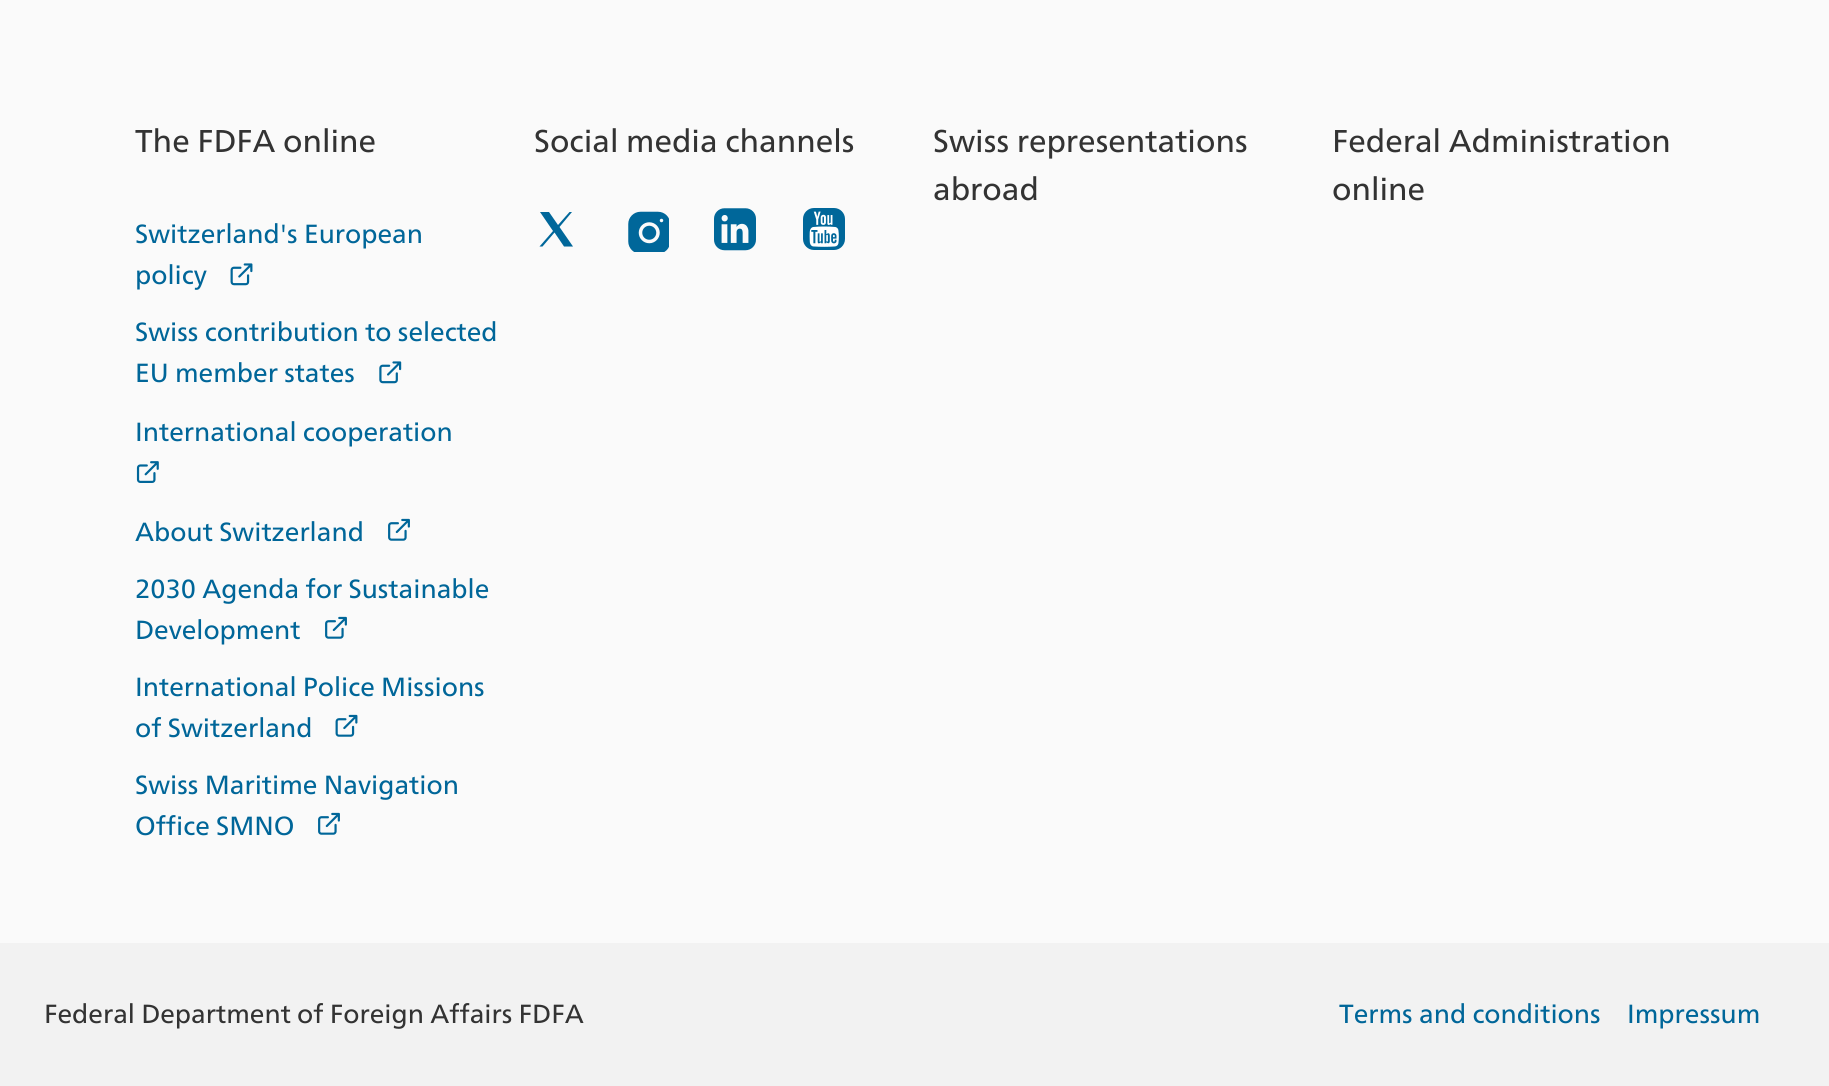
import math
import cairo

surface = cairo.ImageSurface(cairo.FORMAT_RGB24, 1829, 1086)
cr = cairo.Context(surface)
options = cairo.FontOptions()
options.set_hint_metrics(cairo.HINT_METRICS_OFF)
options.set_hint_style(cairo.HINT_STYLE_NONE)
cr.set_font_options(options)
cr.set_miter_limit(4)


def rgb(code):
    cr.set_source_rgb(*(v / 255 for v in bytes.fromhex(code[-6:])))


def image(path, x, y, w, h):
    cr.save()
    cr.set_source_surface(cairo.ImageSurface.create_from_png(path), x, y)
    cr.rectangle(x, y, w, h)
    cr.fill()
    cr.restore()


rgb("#fafafa")
cr.paint()
image("img/1.png", 230, 263, 23, 23)
image("img/2.png", 379, 361, 23, 23)
image("img/3.png", 136, 461, 23, 22)
image("img/4.png", 388, 518, 22, 23)
image("img/4.png", 325, 616, 22, 23)
image("img/5.png", 335, 714, 23, 23)
image("img/4.png", 318, 812, 22, 23)
rgb("#00679a")
cr.new_path()
cr.move_to(540, 212)
cr.line_to(553, 231)
cr.line_to(539.5, 246.5)
cr.line_to(542.5, 246.5)
cr.line_to(554.5, 232.5)
cr.line_to(564, 246.5)
cr.line_to(573, 246.5)
cr.line_to(559.5, 227)
cr.line_to(572, 212)
cr.line_to(569.5, 212)
cr.line_to(558, 225)
cr.line_to(549, 212)
cr.close_path()
cr.fill()
image("img/6.png", 628, 211, 41, 41)
image("img/7.png", 714, 208, 42, 43)
image("img/8.png", 803, 208, 42, 42)
rgb("#f2f2f2")
cr.rectangle(0, 943, 1829, 143)
cr.fill()
cr.select_font_face("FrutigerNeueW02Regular")
cr.set_font_size(31.5)
rgb("#333333")
cr.move_to(135, 152)
cr.show_text("The FDFA online")
cr.set_font_size(26.25)
rgb("#006699")
for x, y, s in [
    (135, 243, "Switzerland's European"),
    (135, 284, "policy"),
    (135, 341, "Swiss contribution to selected"),
    (135, 382, "EU member states"),
    (135, 441, "International cooperation"),
    (135, 541, "About Switzerland"),
    (135, 598, "2030 Agenda for Sustainable"),
    (135, 639, "Development"),
    (135, 696, "International Police Missions"),
    (135, 737, "of Switzerland"),
    (135, 794, "Swiss Maritime Navigation"),
    (135, 835, "Office SMNO"),
]:
    cr.move_to(x, y)
    cr.show_text(s)
cr.set_font_size(31.5)
rgb("#333333")
for x, y, s in [
    (534, 152, "Social media channels"),
    (933, 152, "Swiss representations"),
    (933, 200, "abroad"),
    (1332, 152, "Federal Administration"),
    (1332, 200, "online"),
]:
    cr.move_to(x, y)
    cr.show_text(s)
cr.set_font_size(26.25)
cr.move_to(44, 1023)
cr.show_text("Federal Department of Foreign Affairs FDFA")
rgb("#006699")
cr.move_to(1339, 1023)
cr.show_text("Terms and conditions")
cr.move_to(1627, 1023)
cr.show_text("Impressum")
surface.write_to_png("page.png")
